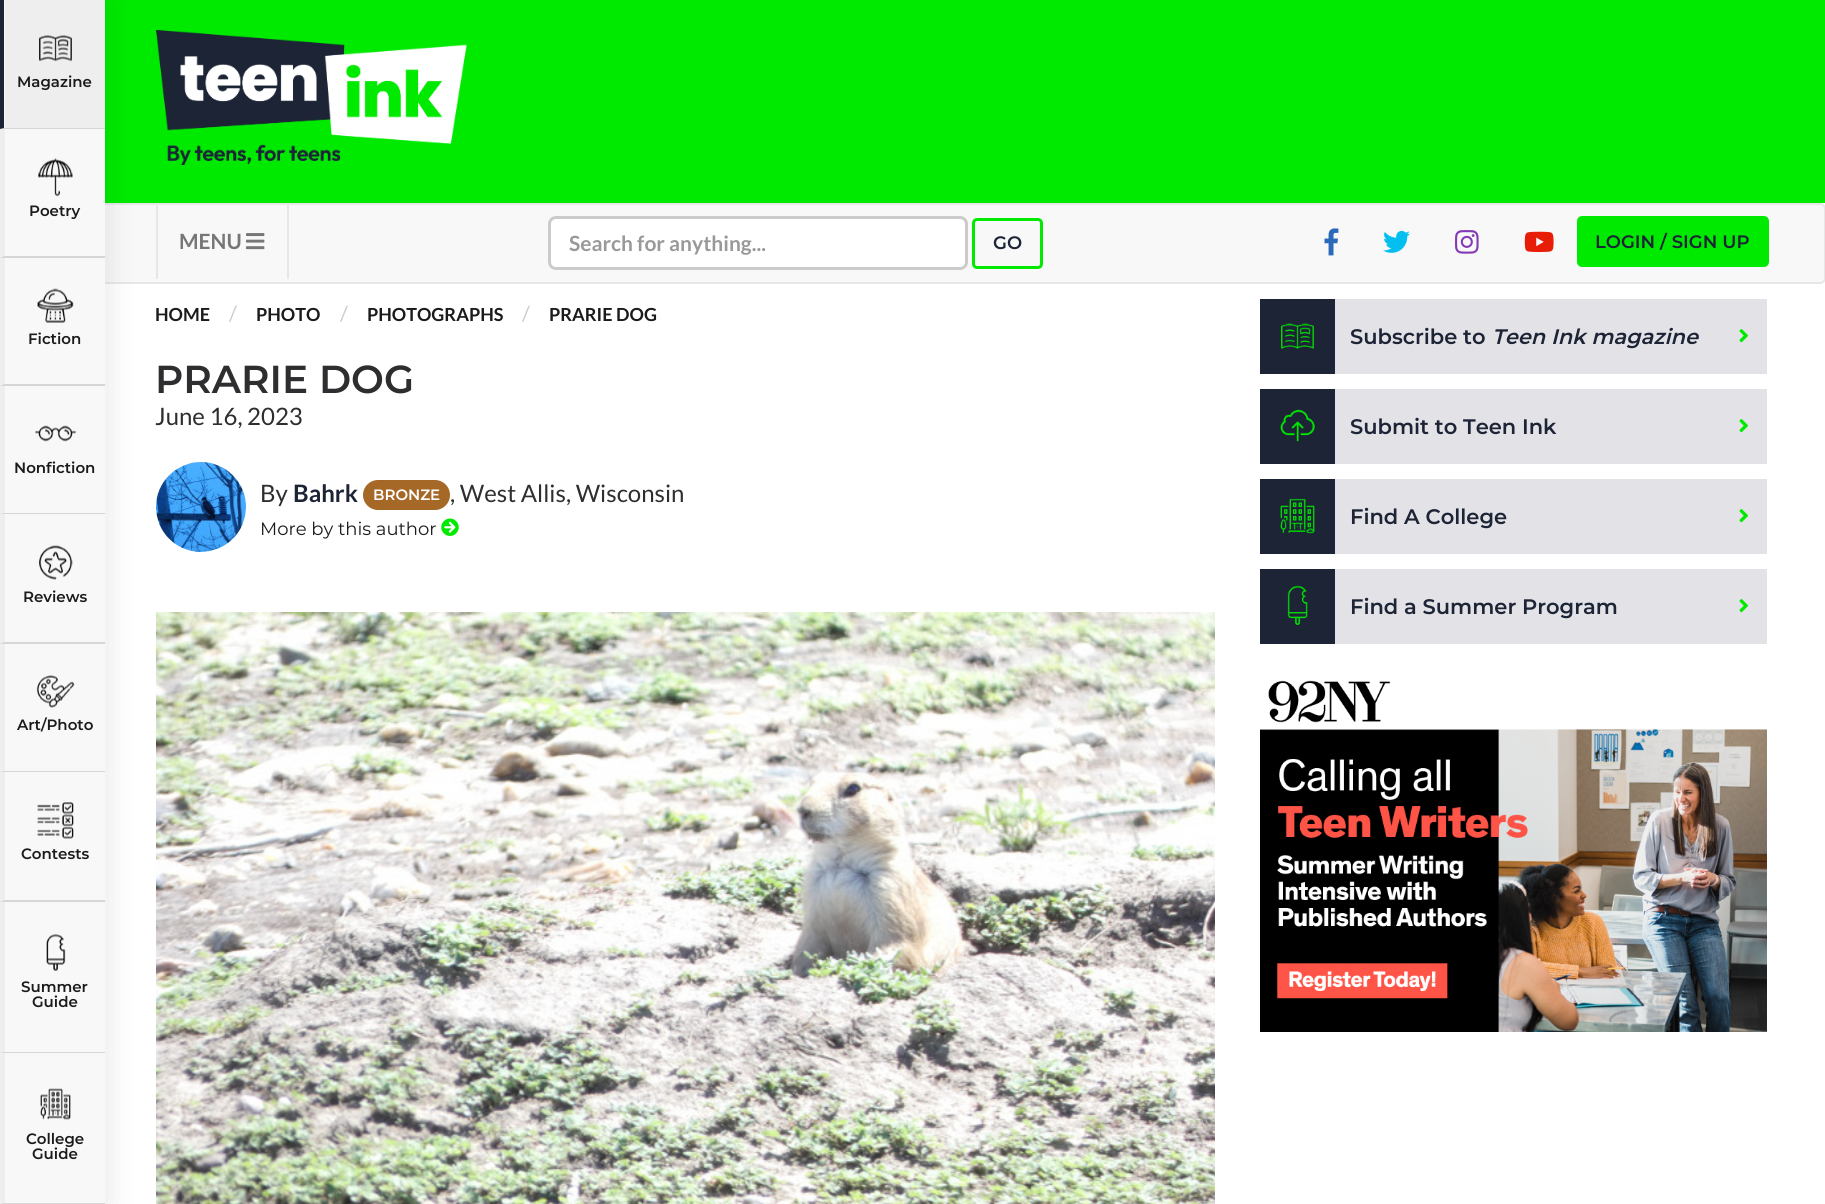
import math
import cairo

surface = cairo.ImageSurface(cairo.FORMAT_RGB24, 1825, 1204)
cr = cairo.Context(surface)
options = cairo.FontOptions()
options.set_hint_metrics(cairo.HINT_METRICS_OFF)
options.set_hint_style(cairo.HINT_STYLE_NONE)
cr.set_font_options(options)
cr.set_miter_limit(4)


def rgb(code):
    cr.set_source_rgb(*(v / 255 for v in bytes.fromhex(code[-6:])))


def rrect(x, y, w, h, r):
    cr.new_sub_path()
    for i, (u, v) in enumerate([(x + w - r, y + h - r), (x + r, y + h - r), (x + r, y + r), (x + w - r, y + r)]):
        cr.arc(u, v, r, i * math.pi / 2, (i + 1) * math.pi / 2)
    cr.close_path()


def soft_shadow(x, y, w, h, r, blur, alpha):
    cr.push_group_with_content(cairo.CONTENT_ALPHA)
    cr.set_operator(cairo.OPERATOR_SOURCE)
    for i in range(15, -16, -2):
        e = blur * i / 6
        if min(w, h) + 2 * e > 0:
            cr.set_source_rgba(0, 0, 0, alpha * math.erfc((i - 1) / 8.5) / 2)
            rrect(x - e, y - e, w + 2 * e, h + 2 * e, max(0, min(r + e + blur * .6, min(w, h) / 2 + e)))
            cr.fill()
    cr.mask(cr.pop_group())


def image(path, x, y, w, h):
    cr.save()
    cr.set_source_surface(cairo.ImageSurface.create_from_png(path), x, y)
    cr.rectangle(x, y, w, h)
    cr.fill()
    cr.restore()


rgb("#ffffff")
cr.paint()
rgb("#00ea00")
cr.rectangle(105, 0, 1720, 203)
cr.fill()
image("img/1.png", 156, 30, 311, 135)
rgb("#f8f8f8")
rrect(1, 204, 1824, 79, 5)
cr.fill_preserve()
rgb("#e7e7e7")
cr.stroke()
rgb("#000000")
soft_shadow(-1, -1, 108, 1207, 0, 15, 0.1)
rgb("#f8f8f8")
cr.rectangle(0, 0, 105, 1203)
cr.fill()
rgb("#eeeeee")
cr.rectangle(5, 0, 100, 128)
cr.fill()
rgb("#d6d6d6")
cr.new_path()
cr.move_to(105, 129)
cr.line_to(0, 129)
cr.line_to(4, 128)
cr.line_to(105, 128)
cr.close_path()
cr.fill()
rgb("#1c2436")
cr.new_path()
cr.move_to(0, 129)
cr.line_to(0, 0)
cr.line_to(4, 0)
cr.line_to(4, 128)
cr.close_path()
cr.fill()
image("img/2.png", 39, 35, 33, 27)
rgb("#eeeeee")
cr.rectangle(0, 129, 5, 644)
cr.fill()
rgb("#d6d6d6")
cr.new_path()
cr.move_to(105, 258)
cr.line_to(0, 258)
cr.line_to(4, 256)
cr.line_to(105, 256)
cr.close_path()
cr.fill()
image("img/3.png", 38, 158, 35, 39)
cr.new_path()
cr.move_to(105, 386)
cr.line_to(0, 386)
cr.line_to(4, 384)
cr.line_to(105, 384)
cr.close_path()
cr.fill()
image("img/4.png", 37, 288, 37, 35)
cr.new_path()
cr.move_to(105, 514)
cr.line_to(0, 514)
cr.line_to(4, 513)
cr.line_to(105, 513)
cr.close_path()
cr.fill()
image("img/5.png", 35, 425, 41, 17)
cr.new_path()
cr.move_to(105, 644)
cr.line_to(0, 644)
cr.line_to(4, 642)
cr.line_to(105, 642)
cr.close_path()
cr.fill()
image("img/6.png", 39, 545, 34, 35)
cr.new_path()
cr.move_to(105, 772)
cr.line_to(0, 772)
cr.line_to(4, 771)
cr.line_to(105, 771)
cr.close_path()
cr.fill()
image("img/7.png", 36, 675, 39, 33)
rgb("#eeeeee")
cr.rectangle(0, 773, 5, 431)
cr.fill()
rgb("#d6d6d6")
cr.new_path()
cr.move_to(105, 902)
cr.line_to(0, 902)
cr.line_to(4, 900)
cr.line_to(105, 900)
cr.close_path()
cr.fill()
image("img/8.png", 37, 802, 37, 37)
cr.new_path()
cr.move_to(105, 1053)
cr.line_to(0, 1053)
cr.line_to(4, 1052)
cr.line_to(105, 1052)
cr.close_path()
cr.fill()
image("img/9.png", 46, 934, 20, 37)
cr.new_path()
cr.move_to(105, 1204)
cr.line_to(0, 1204)
cr.line_to(4, 1203)
cr.line_to(105, 1203)
cr.close_path()
cr.fill()
image("img/10.png", 40, 1088, 31, 32)
image("img/11.png", 156, 462, 90, 90)
rgb("#a56827")
rrect(363, 480, 87, 30, 15)
cr.fill()
image("img/12.png", 441, 518, 18, 18)
image("img/13.png", 156, 612, 1059, 592)
rgb("#e3e2e6")
cr.rectangle(1335, 299, 432, 75)
cr.fill()
rgb("#1c2436")
cr.rectangle(1260, 299, 75, 75)
cr.fill()
image("img/14.png", 1281, 323, 33, 26)
image("img/15.png", 1739, 329, 9, 14)
rgb("#e3e2e6")
cr.rectangle(1335, 389, 432, 75)
cr.fill()
rgb("#1c2436")
cr.rectangle(1260, 389, 75, 75)
cr.fill()
image("img/16.png", 1280, 409, 35, 33)
image("img/15.png", 1739, 419, 9, 14)
rgb("#e3e2e6")
cr.rectangle(1335, 479, 432, 75)
cr.fill()
rgb("#1c2436")
cr.rectangle(1260, 479, 75, 75)
cr.fill()
image("img/17.png", 1280, 498, 35, 36)
image("img/15.png", 1739, 509, 9, 14)
rgb("#e3e2e6")
cr.rectangle(1335, 569, 432, 75)
cr.fill()
rgb("#1c2436")
cr.rectangle(1260, 569, 75, 75)
cr.fill()
image("img/18.png", 1287, 585, 21, 40)
image("img/15.png", 1739, 599, 9, 14)
image("img/19.png", 1260, 680, 507, 352)
rgb("#e7e7e7")
cr.rectangle(287, 204, 2, 75)
cr.fill()
cr.rectangle(156, 204, 2, 75)
cr.fill()
image("img/20.png", 246, 233, 19, 17)
rgb("#ffffff")
rrect(549.5, 217.5, 417, 51, 6.5)
cr.fill_preserve()
rgb("#cbcbcb")
cr.set_line_width(3)
cr.stroke()
rrect(973.5, 219.5, 68, 48, 3.5)
rgb("#00ea00")
cr.stroke()
image("img/21.png", 1324, 228, 15, 28)
image("img/22.png", 1383, 230, 27, 23)
image("img/23.png", 1455, 230, 24, 24)
image("img/24.png", 1524, 231, 30, 21)
rrect(1578.5, 217.5, 189, 48, 3.5)
cr.fill_preserve()
cr.stroke()
cr.select_font_face("Montserrat SemiBold")
cr.set_font_size(15)
rgb("#1b1b1b")
for x, y, s in [
    (17, 87, "Magazine"),
    (29, 216, "Poetry"),
    (28, 344, "Fiction"),
    (14, 473, "Nonfiction"),
    (23, 602, "Reviews"),
    (17, 730, "Art/Photo"),
    (21, 859, "Contests"),
    (21, 992, "Summer"),
    (32, 1007, "Guide"),
    (26, 1144, "College"),
    (32, 1159, "Guide"),
]:
    cr.move_to(x, y)
    cr.show_text(s)
cr.select_font_face("Lato", cairo.FONT_SLANT_NORMAL, cairo.FONT_WEIGHT_BOLD)
cr.set_font_size(18)
cr.move_to(155, 321)
cr.show_text("HOME")
cr.select_font_face("Lato")
cr.set_font_size(21)
rgb("#cccccc")
cr.move_to(229, 321)
cr.show_text("/")
cr.select_font_face("Lato", cairo.FONT_SLANT_NORMAL, cairo.FONT_WEIGHT_BOLD)
cr.set_font_size(18)
rgb("#1b1b1b")
cr.move_to(256, 321)
cr.show_text("PHOTO")
cr.select_font_face("Lato")
cr.set_font_size(21)
rgb("#cccccc")
cr.move_to(340, 321)
cr.show_text("/")
cr.select_font_face("Lato", cairo.FONT_SLANT_NORMAL, cairo.FONT_WEIGHT_BOLD)
cr.set_font_size(18)
rgb("#1b1b1b")
cr.move_to(367, 321)
cr.show_text("PHOTOGRAPHS")
cr.select_font_face("Lato")
cr.set_font_size(21)
rgb("#cccccc")
cr.move_to(522, 321)
cr.show_text("/")
cr.select_font_face("Lato", cairo.FONT_SLANT_NORMAL, cairo.FONT_WEIGHT_BOLD)
cr.set_font_size(18)
rgb("#1b1b1b")
cr.move_to(549, 321)
cr.show_text("PRARIE DOG")
cr.select_font_face("Montserrat SemiBold")
cr.set_font_size(39)
rgb("#2e2d30")
cr.move_to(155, 393)
cr.show_text("PRARIE DOG")
cr.select_font_face("Lato")
cr.set_font_size(24)
cr.move_to(155, 425)
cr.show_text("June 16, 2023")
cr.move_to(260, 502)
cr.show_text("By")
cr.select_font_face("Lato", cairo.FONT_SLANT_NORMAL, cairo.FONT_WEIGHT_BOLD)
rgb("#1c2436")
cr.move_to(293, 502)
cr.show_text("Bahrk")
cr.select_font_face("Montserrat SemiBold")
cr.set_font_size(15)
rgb("#ffffff")
cr.move_to(373, 500)
cr.show_text("BRONZE")
cr.select_font_face("Lato")
cr.set_font_size(24)
rgb("#2e2d30")
cr.move_to(450, 502)
cr.show_text(", West Allis, Wisconsin")
cr.select_font_face("Montserrat")
cr.set_font_size(18)
rgb("#1b1b1b")
cr.move_to(260, 535)
cr.show_text("More by this author")
cr.select_font_face("Montserrat SemiBold")
cr.set_font_size(21)
rgb("#1c2436")
cr.move_to(1350, 344)
cr.show_text("Subscribe to")
cr.select_font_face("Montserrat SemiBold", cairo.FONT_SLANT_ITALIC)
cr.move_to(1492, 344)
cr.show_text("Teen Ink magazine")
cr.select_font_face("Montserrat SemiBold")
for x, y, s in [
    (1350, 434, "Submit to Teen Ink"),
    (1350, 524, "Find A College"),
    (1350, 614, "Find a Summer Program"),
]:
    cr.move_to(x, y)
    cr.show_text(s)
cr.select_font_face("Lato", cairo.FONT_SLANT_NORMAL, cairo.FONT_WEIGHT_BOLD)
rgb("#777777")
cr.move_to(179, 249)
cr.show_text("MENU")
rgb("#999999")
cr.move_to(569, 251)
cr.show_text("Search for anything...")
cr.select_font_face("Montserrat SemiBold")
cr.set_font_size(18)
rgb("#1c2436")
cr.move_to(993, 249)
cr.show_text("GO")
cr.move_to(1595, 248)
cr.show_text("LOGIN / SIGN UP")
surface.write_to_png("page.png")
